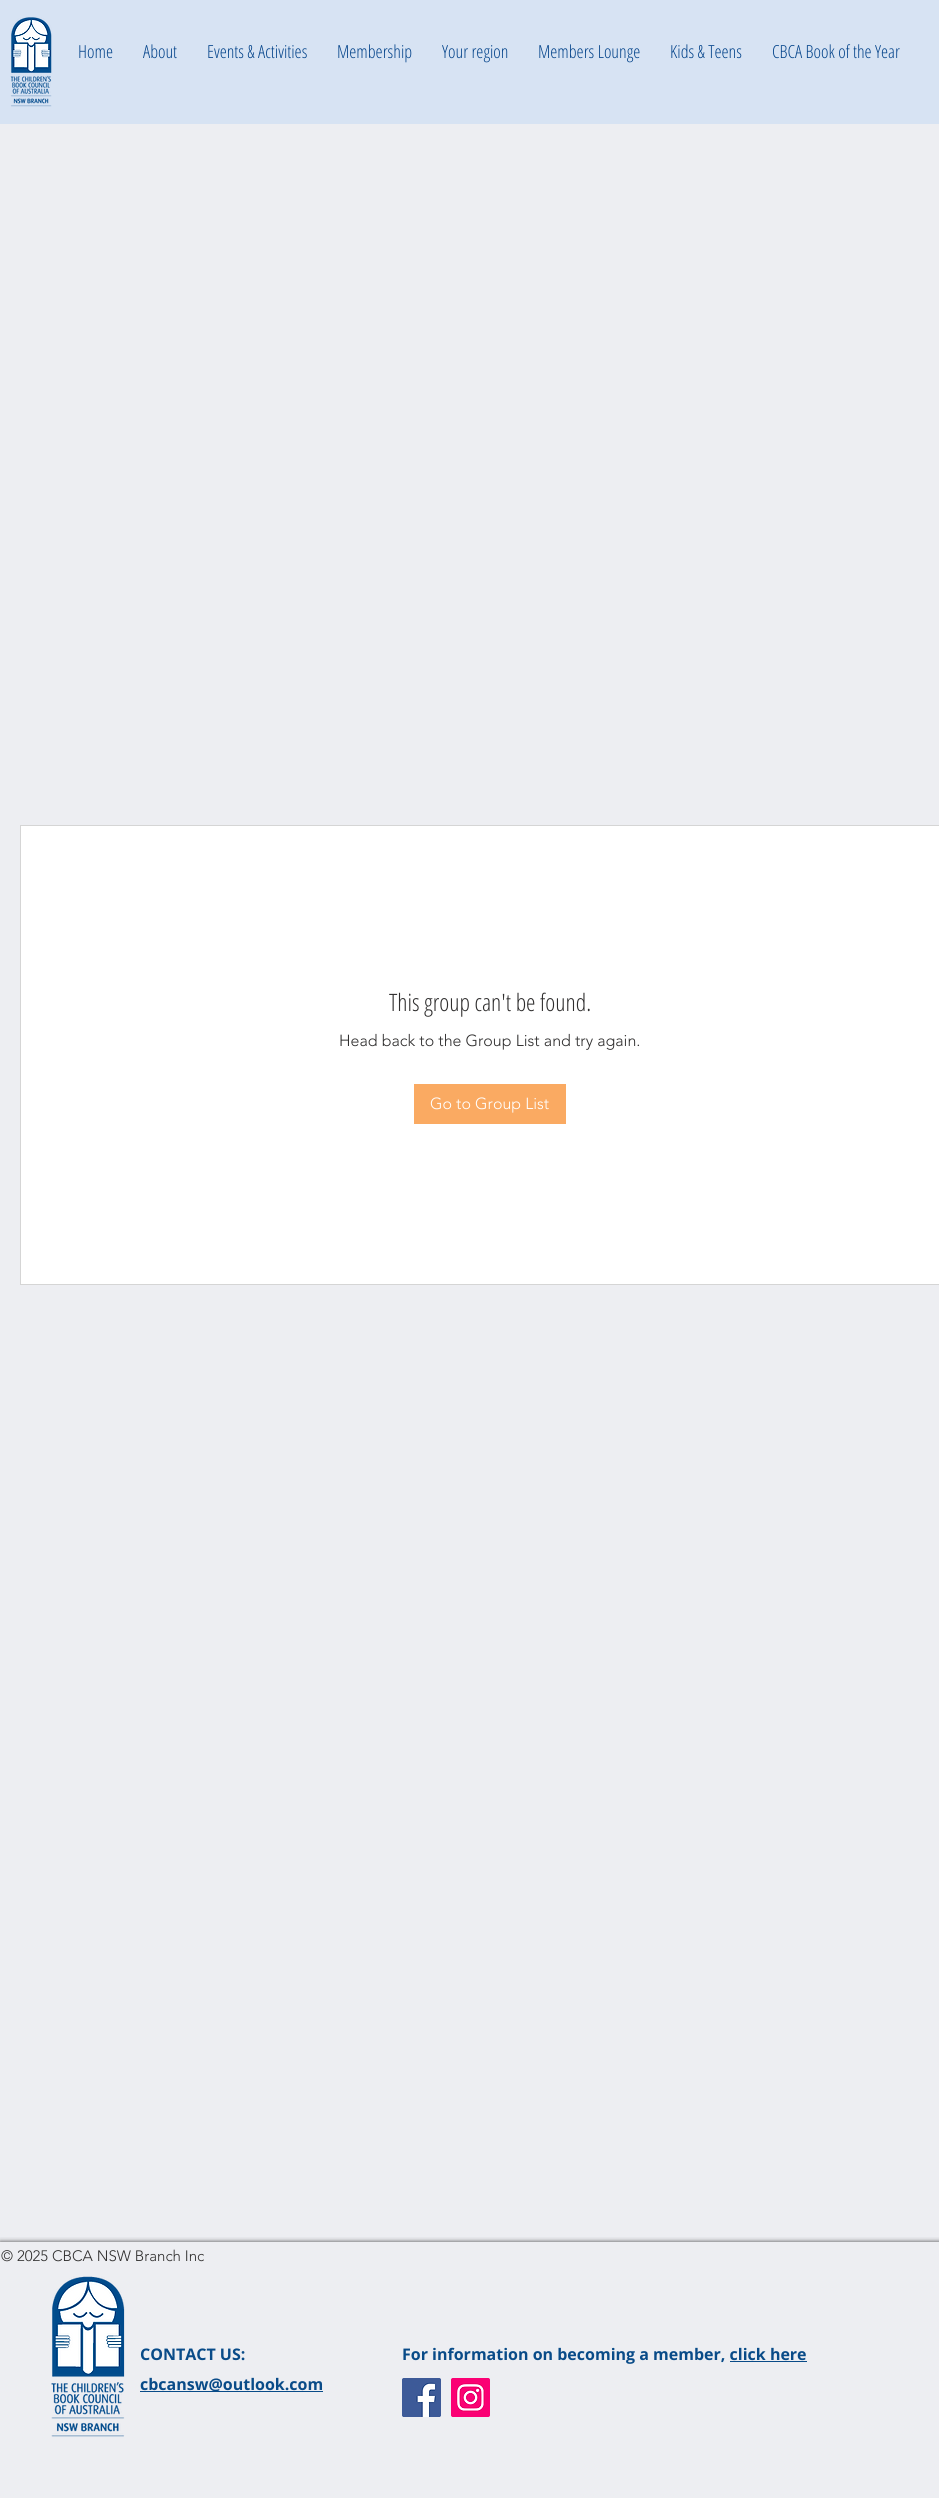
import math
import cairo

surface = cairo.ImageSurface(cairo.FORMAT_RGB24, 939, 2498)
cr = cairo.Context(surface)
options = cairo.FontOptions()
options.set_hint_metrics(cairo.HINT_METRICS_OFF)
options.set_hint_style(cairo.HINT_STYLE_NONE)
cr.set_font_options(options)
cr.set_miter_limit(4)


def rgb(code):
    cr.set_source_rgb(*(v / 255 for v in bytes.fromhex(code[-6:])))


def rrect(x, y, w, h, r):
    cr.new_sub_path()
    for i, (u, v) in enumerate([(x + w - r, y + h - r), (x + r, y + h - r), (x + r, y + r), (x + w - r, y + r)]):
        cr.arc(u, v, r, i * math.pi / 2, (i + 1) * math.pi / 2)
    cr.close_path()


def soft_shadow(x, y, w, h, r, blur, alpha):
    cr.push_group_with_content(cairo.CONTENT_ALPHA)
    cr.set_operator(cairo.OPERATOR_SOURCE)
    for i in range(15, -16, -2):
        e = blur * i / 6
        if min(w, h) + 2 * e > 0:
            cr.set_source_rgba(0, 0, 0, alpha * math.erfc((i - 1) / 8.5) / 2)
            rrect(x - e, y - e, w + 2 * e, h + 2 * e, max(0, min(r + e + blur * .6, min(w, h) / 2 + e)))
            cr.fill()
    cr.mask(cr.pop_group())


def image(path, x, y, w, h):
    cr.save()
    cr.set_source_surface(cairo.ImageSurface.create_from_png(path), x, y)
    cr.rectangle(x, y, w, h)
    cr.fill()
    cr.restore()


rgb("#edeef2")
cr.paint()
rgb("#d7e3f3")
cr.rectangle(0, 0, 939, 124)
cr.fill()
image("img/1.png", 10, 17, 42, 90)
rgb("#ffffff")
cr.rectangle(20.5, 825.5, 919, 459)
cr.fill_preserve()
rgb("#d5d5d5")
cr.set_line_width(1)
cr.stroke()
rgb("#faaa62")
cr.rectangle(414, 1084, 152, 40)
cr.fill()
cr.save()
cr.rectangle(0, 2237, 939, 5)
cr.clip()
rgb("#000000")
soft_shadow(0, 2242, 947, 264, 0, 2.5, 0.7)
cr.restore()
image("img/2.png", 51, 2276, 74, 161)
rgb("#094b88")
cr.rectangle(730, 2361, 77, 1)
cr.fill()
cr.rectangle(140, 2391, 183, 1)
cr.fill()
image("img/3.png", 402, 2378, 39, 39)
image("img/4.png", 451, 2378, 39, 39)
cr.select_font_face("Open Sans Condensed Light")
cr.set_font_size(18)
rgb("#03438a")
for x, y, s in [
    (78, 58, "Home"),
    (143, 58, "About"),
    (207, 58, "Events & Activities"),
    (337, 58, "Membership"),
    (442, 58, "Your region"),
    (538, 58, "Members Lounge"),
    (670, 58, "Kids & Teens"),
    (772, 58, "CBCA Book of the Year"),
]:
    cr.move_to(x, y)
    cr.show_text(s)
cr.set_font_size(24)
rgb("#2f2e2e")
cr.move_to(389, 1011)
cr.show_text("This group can't be found.")
cr.select_font_face("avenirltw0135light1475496 Light")
cr.set_font_size(16)
cr.move_to(339, 1046)
cr.show_text("Head back to the Group List and try again.")
rgb("#ffffff")
cr.move_to(430, 1109)
cr.show_text("Go to Group List")
cr.set_font_size(15)
rgb("#2f2e2e")
cr.move_to(1, 2261)
cr.show_text("© 2025 CBCA NSW Branch Inc")
cr.select_font_face("Open Sans", cairo.FONT_SLANT_NORMAL, cairo.FONT_WEIGHT_BOLD)
cr.set_font_size(16)
rgb("#094b88")
for x, y, s in [
    (140, 2360, "CONTACT US:"),
    (402, 2360, "For information on becoming a member, click here"),
    (140, 2390, "cbcansw@outlook.com"),
]:
    cr.move_to(x, y)
    cr.show_text(s)
surface.write_to_png("page.png")
